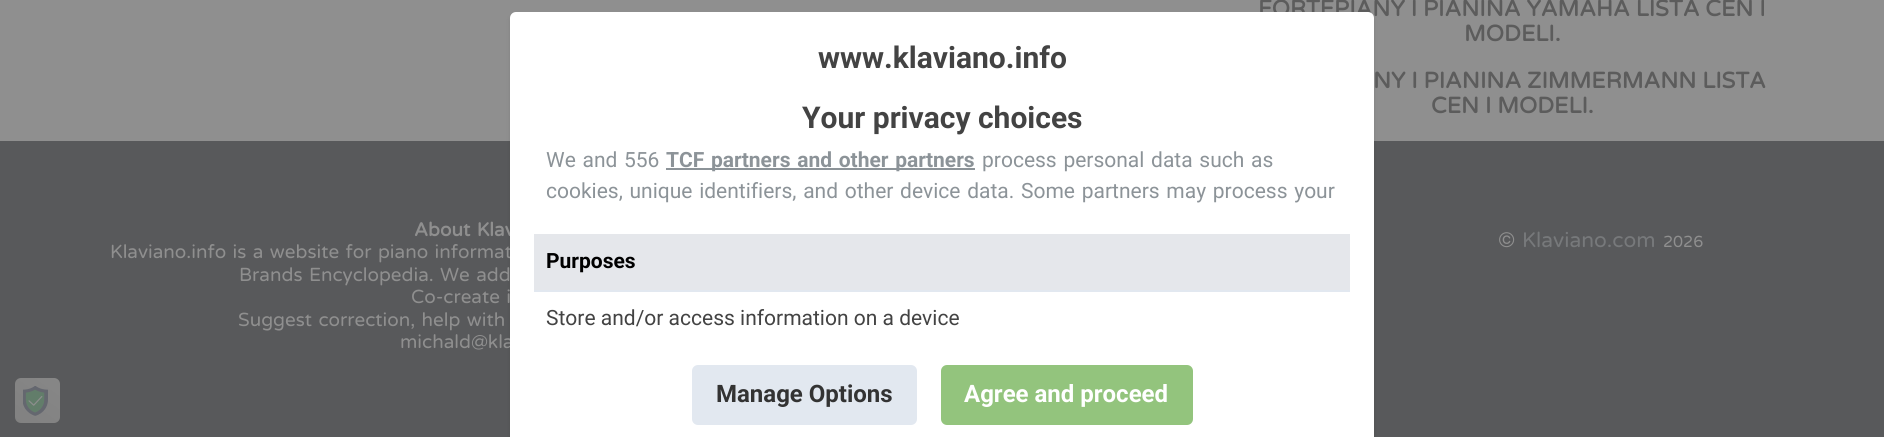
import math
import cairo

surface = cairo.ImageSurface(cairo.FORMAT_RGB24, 1884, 437)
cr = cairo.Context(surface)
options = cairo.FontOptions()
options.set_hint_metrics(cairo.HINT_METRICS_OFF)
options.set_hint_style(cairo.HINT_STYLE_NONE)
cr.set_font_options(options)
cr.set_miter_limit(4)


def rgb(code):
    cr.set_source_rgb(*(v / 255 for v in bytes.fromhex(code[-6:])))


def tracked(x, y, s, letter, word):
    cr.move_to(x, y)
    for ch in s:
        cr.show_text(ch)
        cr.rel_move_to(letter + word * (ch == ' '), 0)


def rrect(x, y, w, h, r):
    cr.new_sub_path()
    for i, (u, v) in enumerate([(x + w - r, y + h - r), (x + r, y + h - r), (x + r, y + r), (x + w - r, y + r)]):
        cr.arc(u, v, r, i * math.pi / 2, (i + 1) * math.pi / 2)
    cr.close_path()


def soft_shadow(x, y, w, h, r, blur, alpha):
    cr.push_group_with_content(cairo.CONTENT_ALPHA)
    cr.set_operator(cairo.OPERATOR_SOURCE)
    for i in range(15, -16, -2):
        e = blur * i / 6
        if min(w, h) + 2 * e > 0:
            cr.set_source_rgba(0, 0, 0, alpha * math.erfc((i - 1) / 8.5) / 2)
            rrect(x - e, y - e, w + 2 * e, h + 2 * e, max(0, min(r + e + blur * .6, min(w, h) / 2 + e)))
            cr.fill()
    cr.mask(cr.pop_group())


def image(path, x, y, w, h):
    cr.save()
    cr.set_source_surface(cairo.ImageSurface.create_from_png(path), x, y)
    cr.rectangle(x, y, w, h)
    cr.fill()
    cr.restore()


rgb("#8f8f8f")
cr.paint()
rgb("#58595b")
cr.rectangle(0, 141, 1884, 296)
cr.fill()
rgb("#000000")
soft_shadow(510, 14, 864, 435, 6, 2, 0.1)
gradient = cairo.LinearGradient(19, 426, 56, 375)
gradient.add_color_stop_rgba(0, 0.506, 0.506, 0.506, 1)
gradient.add_color_stop_rgba(1, 0.529, 0.529, 0.529, 1)
cr.set_source(gradient)
rrect(15, 378, 45, 45, 6)
cr.fill()
image("img/1.png", 23, 386, 25, 30)
cr.select_font_face("Varela Round", cairo.FONT_SLANT_NORMAL, cairo.FONT_WEIGHT_BOLD)
cr.set_font_size(22.5)
rgb("#5c5c5c")
for x, y, s in [
    (1258, 16, "FORTEPIANY I PIANINA YAMAHA LISTA CEN I"),
    (1464, 41, "MODELI."),
    (1373, 88, "NY I PIANINA ZIMMERMANN LISTA"),
    (1431, 113, "CEN I MODELI."),
]:
    cr.move_to(x, y)
    cr.show_text(s)
cr.set_font_size(18.9)
rgb("#8f8f8f")
tracked(414, 236, "About Klav", 0, 1.5)
cr.select_font_face("Varela Round")
for x, y, s in [
    (110, 258, "Klaviano.info is a website for piano informat"),
    (239, 281, "Brands Encyclopedia."),
    (440, 281, "We add"),
    (411, 303, "Co-create i"),
    (238, 326, "Suggest correction, help with"),
]:
    tracked(x, y, s, 0, 1.5)
cr.move_to(400, 348)
cr.show_text("michald@kla")
rgb("#ffffff")
rrect(510, 12, 864, 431, 6)
cr.fill()
cr.select_font_face("Roboto")
cr.set_font_size(21)
rgb("#434343")
cr.move_to(546, 325)
cr.show_text("Store and/or access information on a device")
rgb("#e5e7eb")
cr.rectangle(534, 234, 816, 56)
cr.fill()
cr.select_font_face("Roboto", cairo.FONT_SLANT_NORMAL, cairo.FONT_WEIGHT_BOLD)
rgb("#000000")
cr.move_to(546, 268)
cr.show_text("Purposes")
rgb("#e2e8f0")
cr.rectangle(534, 290, 816, 2)
cr.fill()
cr.select_font_face("Roboto")
rgb("#8c9398")
for x, y, s in [
    (1021, 198, "Some partners may process your"),
    (546, 198, "cookies, unique identifiers, and other device data."),
    (982, 167, "process personal data such as"),
]:
    tracked(x, y, s, 0, 1.5)
cr.rectangle(666, 168, 309, 2)
cr.fill()
cr.select_font_face("Roboto", cairo.FONT_SLANT_NORMAL, cairo.FONT_WEIGHT_BOLD)
tracked(666, 167, "TCF partners and other partners", 0, 1.5)
cr.select_font_face("Roboto")
cr.move_to(624, 167)
cr.show_text("556")
tracked(546, 167, "We and", 0, 1.5)
cr.select_font_face("Roboto", cairo.FONT_SLANT_NORMAL, cairo.FONT_WEIGHT_BOLD)
cr.set_font_size(30)
rgb("#434343")
cr.move_to(802, 128)
cr.show_text("Your privacy choices")
cr.move_to(818, 68)
cr.show_text("www.klaviano.info")
rgb("#93c47d")
rrect(941, 365, 252, 60, 6)
cr.fill()
cr.set_font_size(24)
rgb("#ffffff")
cr.move_to(964, 402)
cr.show_text("Agree and proceed")
rgb("#e2e8f0")
rrect(692, 365, 225, 60, 6)
cr.fill()
rgb("#333333")
cr.move_to(716, 402)
cr.show_text("Manage Options")
cr.select_font_face("Varela Round")
cr.set_font_size(21)
rgb("#8f8f8f")
cr.move_to(1498, 247)
cr.show_text("©")
rgb("#77797b")
cr.move_to(1522, 247)
cr.show_text("Klaviano.com")
cr.set_font_size(16)
rgb("#8f8f8f")
cr.move_to(1663, 247)
cr.show_text("2026")
surface.write_to_png("page.png")
